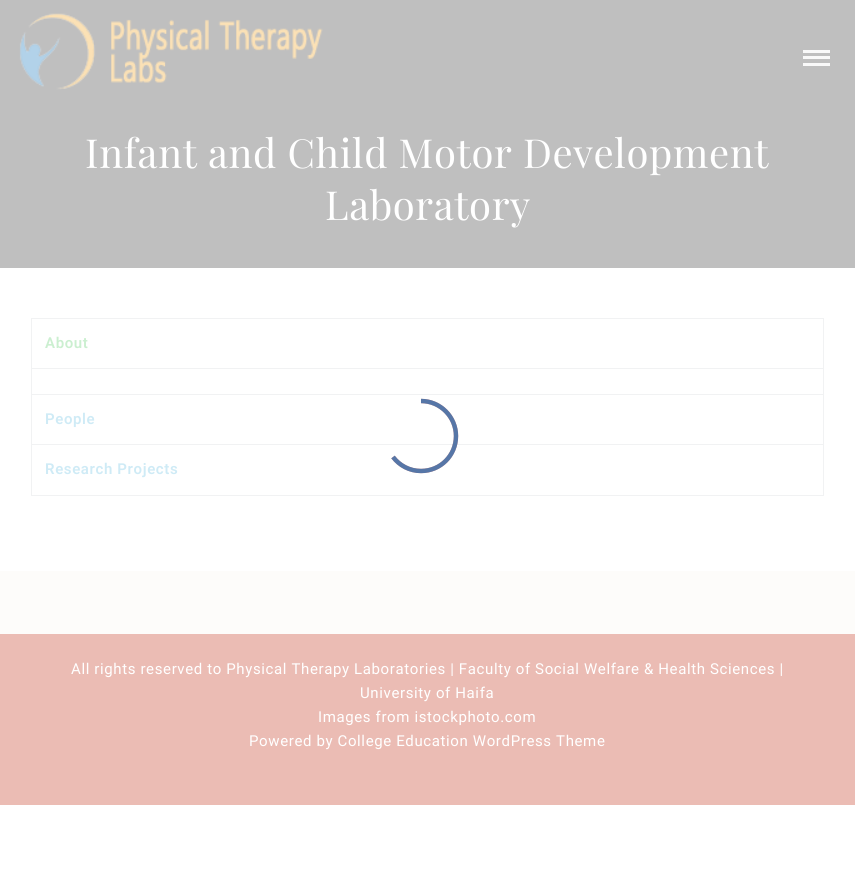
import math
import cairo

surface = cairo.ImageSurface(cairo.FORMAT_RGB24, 855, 885)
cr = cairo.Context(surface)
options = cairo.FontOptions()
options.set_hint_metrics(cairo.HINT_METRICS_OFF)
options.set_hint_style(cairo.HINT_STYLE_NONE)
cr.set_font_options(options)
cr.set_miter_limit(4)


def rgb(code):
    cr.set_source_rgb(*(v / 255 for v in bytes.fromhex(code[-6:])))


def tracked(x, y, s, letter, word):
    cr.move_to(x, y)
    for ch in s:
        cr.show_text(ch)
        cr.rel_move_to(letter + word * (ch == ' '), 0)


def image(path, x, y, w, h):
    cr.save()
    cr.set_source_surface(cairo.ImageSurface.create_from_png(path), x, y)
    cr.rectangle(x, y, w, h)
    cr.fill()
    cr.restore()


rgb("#ffffff")
cr.paint()
rgb("#bfbfbf")
cr.rectangle(0, 0, 855, 268)
cr.fill()
image("img/1.png", 19, 13, 304, 77)
for x, y, w, h, color in [
    (803, 50, 27, 3, "#f9f9f9"),
    (803, 56, 27, 3, "#f9f9f9"),
    (803, 63, 27, 3, "#f9f9f9"),
    (31, 495, 793, 1, "#f1f2f3"),
    (31, 318, 793, 1, "#f1f2f3"),
    (823, 318, 1, 50, "#f1f2f3"),
    (31, 318, 1, 50, "#f1f2f3"),
    (31, 368, 793, 1, "#f1f2f3"),
    (823, 368, 1, 26, "#f1f2f3"),
    (31, 368, 1, 26, "#f1f2f3"),
    (31, 394, 793, 1, "#f1f2f3"),
    (823, 394, 1, 50, "#f1f2f3"),
    (31, 394, 1, 50, "#f1f2f3"),
    (31, 444, 793, 1, "#f1f2f3"),
    (823, 444, 1, 51, "#f1f2f3"),
    (31, 444, 1, 51, "#f1f2f3"),
]:
    rgb(color)
    cr.rectangle(x, y, w, h)
    cr.fill()
cr.new_path()
cr.move_to(421, 401)
cr.curve_to(440.5, 401, 456, 417, 456, 436)
cr.curve_to(456, 455.5, 440.5, 471, 421, 471)
cr.curve_to(409.5, 471, 399.5, 465.5, 393, 457)
cr.set_source_rgba(0.757, 0.2, 0.106, 0.67)
cr.set_line_width(4.4)
cr.stroke()
cr.new_path()
cr.move_to(421, 401)
cr.curve_to(440.5, 401, 456, 417, 456, 436)
cr.curve_to(456, 455.5, 440.5, 471, 421, 471)
cr.curve_to(409.5, 471, 399.5, 465.5, 393, 457)
cr.set_source_rgba(0.098, 0.463, 0.776, 0.67)
cr.stroke()
rgb("#fdfcfa")
cr.rectangle(0, 571, 855, 63)
cr.fill()
rgb("#ebbcb4")
cr.rectangle(0, 634, 855, 171)
cr.fill()
cr.select_font_face("Playfair Display")
cr.set_font_size(40)
rgb("#ffffff")
tracked(85, 168, "Infant and Child Motor Development", 0.62, 0)
tracked(325, 220, "Laboratory", 0.62, 0)
cr.select_font_face("Roboto SemiBold")
cr.set_font_size(15)
rgb("#cbefd0")
tracked(45, 348, "About", 0.62, 0)
rgb("#cfebf6")
tracked(45, 424, "People", 0.62, 0)
tracked(45, 474, "Research Projects", 0.62, 0)
cr.select_font_face("Roboto")
rgb("#ffffff")
for x, y, s in [
    (71, 674, "All rights reserved to Physical Therapy Laboratories | Faculty of Social Welfare & Health Sciences |"),
    (360, 698, "University of Haifa"),
    (318, 722, "Images from istockphoto.com"),
    (249, 746, "Powered by College Education WordPress Theme"),
]:
    tracked(x, y, s, 0.62, 0)
surface.write_to_png("page.png")
